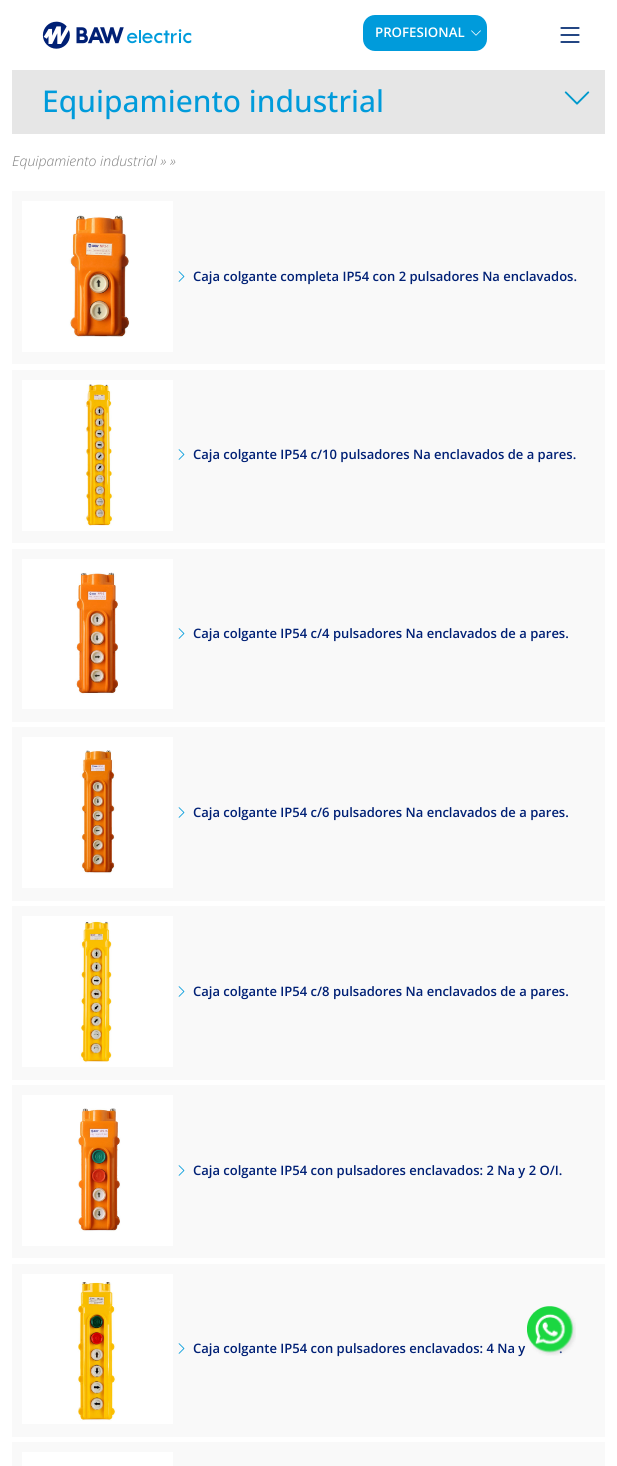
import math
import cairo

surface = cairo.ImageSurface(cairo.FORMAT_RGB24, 617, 1466)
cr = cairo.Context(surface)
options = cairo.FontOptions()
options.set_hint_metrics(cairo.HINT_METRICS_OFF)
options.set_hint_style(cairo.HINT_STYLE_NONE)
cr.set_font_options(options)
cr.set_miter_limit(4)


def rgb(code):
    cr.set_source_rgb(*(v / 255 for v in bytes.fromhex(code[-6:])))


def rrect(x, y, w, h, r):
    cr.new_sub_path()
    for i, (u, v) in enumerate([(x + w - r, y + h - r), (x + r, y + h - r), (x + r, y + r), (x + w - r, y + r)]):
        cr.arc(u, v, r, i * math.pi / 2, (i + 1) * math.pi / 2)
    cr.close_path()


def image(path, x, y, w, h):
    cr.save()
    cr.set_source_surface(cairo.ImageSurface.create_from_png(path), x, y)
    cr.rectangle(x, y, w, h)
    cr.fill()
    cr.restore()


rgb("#ffffff")
cr.paint()
image("img/1.png", 42, 21, 150, 28)
rgb("#009bdb")
rrect(363, 15, 124, 36, 12)
cr.fill()
image("img/2.png", 471, 30, 10, 6)
image("img/3.png", 560, 27, 20, 16)
rgb("#e6e6e6")
cr.rectangle(12, 70, 593, 64)
cr.fill()
image("img/4.png", 564, 91, 26, 14)
rgb("#f9f9f9")
cr.rectangle(12, 191, 593, 173)
cr.fill()
image("img/5.png", 22, 201, 151, 151)
image("img/6.png", 178, 271, 7, 11)
cr.rectangle(12, 370, 593, 173)
cr.fill()
image("img/7.png", 22, 380, 151, 151)
image("img/6.png", 178, 449, 7, 11)
cr.rectangle(12, 549, 593, 173)
cr.fill()
image("img/8.png", 22, 559, 151, 150)
image("img/6.png", 178, 628, 7, 11)
cr.rectangle(12, 727, 593, 174)
cr.fill()
image("img/9.png", 22, 737, 151, 151)
image("img/6.png", 178, 807, 7, 11)
cr.rectangle(12, 906, 593, 174)
cr.fill()
image("img/10.png", 22, 916, 151, 151)
image("img/6.png", 178, 986, 7, 11)
cr.rectangle(12, 1085, 593, 173)
cr.fill()
image("img/11.png", 22, 1095, 151, 151)
image("img/6.png", 178, 1165, 7, 11)
cr.rectangle(12, 1264, 593, 173)
cr.fill()
image("img/12.png", 22, 1274, 151, 150)
image("img/6.png", 178, 1343, 7, 11)
cr.rectangle(12, 1442, 593, 24)
cr.fill()
rgb("#ffffff")
cr.rectangle(22, 1452, 151, 14)
cr.fill()
cr.select_font_face("Open Sans SemiBold")
cr.set_font_size(13.25)
cr.move_to(375, 37)
cr.show_text("PROFESIONAL")
cr.select_font_face("Open Sans Medium")
cr.set_font_size(30)
rgb("#009bdb")
cr.move_to(42, 112)
cr.show_text("Equipamiento industrial")
cr.select_font_face("Open Sans Light", cairo.FONT_SLANT_ITALIC)
cr.set_font_size(14)
rgb("#808080")
cr.move_to(12, 166)
cr.show_text("Equipamiento industrial » »")
cr.select_font_face("Open Sans SemiBold")
cr.set_font_size(13)
rgb("#002075")
for x, y, s in [
    (193, 281, "Caja colgante completa IP54 con 2 pulsadores Na enclavados."),
    (193, 459, "Caja colgante IP54 c/10 pulsadores Na enclavados de a pares."),
    (193, 638, "Caja colgante IP54 c/4 pulsadores Na enclavados de a pares."),
    (193, 817, "Caja colgante IP54 c/6 pulsadores Na enclavados de a pares."),
    (193, 996, "Caja colgante IP54 c/8 pulsadores Na enclavados de a pares."),
    (193, 1175, "Caja colgante IP54 con pulsadores enclavados: 2 Na y 2 O/I."),
    (193, 1353, "Caja colgante IP54 con pulsadores enclavados: 4 Na y"),
    (559, 1353, "."),
]:
    cr.move_to(x, y)
    cr.show_text(s)
image("img/13.png", 527, 1306, 49, 50)
surface.write_to_png("page.png")
